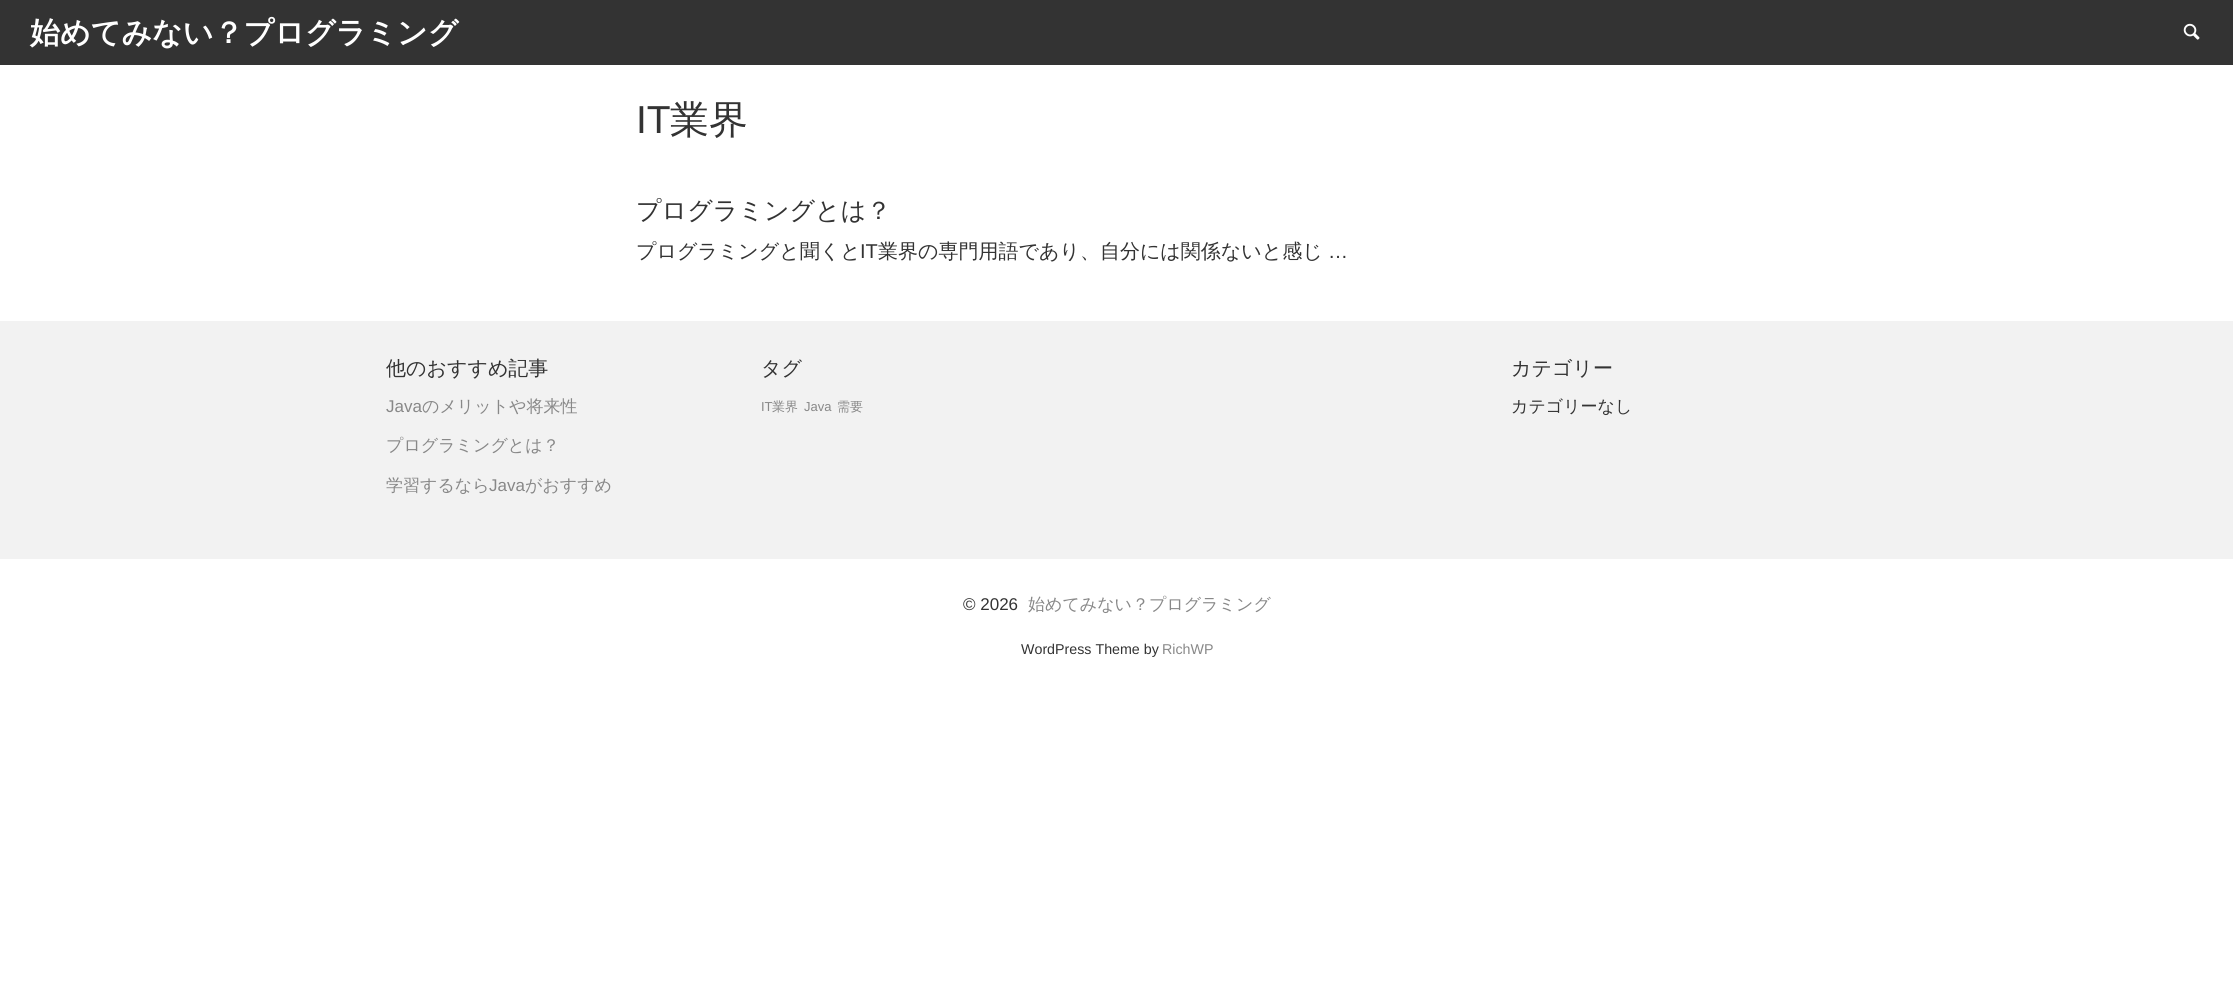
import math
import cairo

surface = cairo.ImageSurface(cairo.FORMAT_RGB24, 2233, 995)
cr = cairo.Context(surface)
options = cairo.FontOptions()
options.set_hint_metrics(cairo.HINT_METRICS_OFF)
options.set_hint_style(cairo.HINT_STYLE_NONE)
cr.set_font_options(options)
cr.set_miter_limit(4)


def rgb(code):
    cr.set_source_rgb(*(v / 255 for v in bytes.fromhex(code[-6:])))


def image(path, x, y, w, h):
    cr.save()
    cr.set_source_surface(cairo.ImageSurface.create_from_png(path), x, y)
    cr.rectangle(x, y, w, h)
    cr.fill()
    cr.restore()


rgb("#ffffff")
cr.paint()
rgb("#333333")
cr.rectangle(0, 0, 2233, 65)
cr.fill()
image("img/1.png", 2183, 23, 17, 17)
rgb("#f2f2f2")
cr.rectangle(0, 321, 2233, 238)
cr.fill()
cr.select_font_face("WenQuanYi Zen Hei", cairo.FONT_SLANT_NORMAL, cairo.FONT_WEIGHT_BOLD)
cr.set_font_size(30)
rgb("#ffffff")
cr.move_to(30, 43)
cr.show_text("始めてみない？プログラミング")
cr.select_font_face("Liberation Sans")
cr.set_font_size(39)
rgb("#333333")
cr.move_to(636, 133)
cr.show_text("IT")
cr.select_font_face("WenQuanYi Zen Hei Medium")
cr.move_to(670, 133)
cr.show_text("業界")
cr.set_font_size(25)
cr.move_to(636, 219)
cr.show_text("プログラミングとは？")
cr.set_font_size(20)
cr.move_to(636, 258)
cr.show_text("プログラミングと聞くと")
cr.select_font_face("Liberation Sans")
cr.move_to(860, 258)
cr.show_text("IT")
cr.select_font_face("WenQuanYi Zen Hei Medium")
cr.move_to(878, 258)
cr.show_text("業界の専門用語であり、自分には関係ないと感じ")
cr.select_font_face("Liberation Sans")
cr.move_to(1328, 258)
cr.show_text("…")
cr.select_font_face("WenQuanYi Zen Hei Medium")
cr.move_to(386, 375)
cr.show_text("他のおすすめ記事")
cr.select_font_face("Liberation Sans")
cr.set_font_size(17)
rgb("#888888")
cr.move_to(386, 412)
cr.show_text("Java")
cr.select_font_face("WenQuanYi Zen Hei Medium")
for x, y, s in [
    (422, 412, "のメリットや将来性"),
    (386, 451, "プログラミングとは？"),
    (386, 491, "学習するなら"),
]:
    cr.move_to(x, y)
    cr.show_text(s)
cr.select_font_face("Liberation Sans")
cr.move_to(489, 491)
cr.show_text("Java")
cr.select_font_face("WenQuanYi Zen Hei Medium")
cr.move_to(525, 491)
cr.show_text("がおすすめ")
cr.set_font_size(20)
rgb("#333333")
cr.move_to(761, 375)
cr.show_text("タグ")
cr.select_font_face("Liberation Sans")
cr.set_font_size(13)
rgb("#888888")
cr.move_to(761, 411)
cr.show_text("IT")
cr.select_font_face("WenQuanYi Zen Hei Medium")
cr.move_to(772, 411)
cr.show_text("業界")
cr.select_font_face("Liberation Sans")
cr.move_to(804, 411)
cr.show_text("Java")
cr.select_font_face("WenQuanYi Zen Hei Medium")
cr.move_to(837, 411)
cr.show_text("需要")
cr.set_font_size(20)
rgb("#333333")
cr.move_to(1511, 375)
cr.show_text("カテゴリー")
cr.set_font_size(17)
cr.move_to(1511, 412)
cr.show_text("カテゴリーなし")
cr.select_font_face("Liberation Sans")
cr.move_to(963, 610)
cr.show_text("© 2026")
cr.select_font_face("WenQuanYi Zen Hei Medium")
rgb("#888888")
cr.move_to(1028, 610)
cr.show_text("始めてみない？プログラミング")
cr.select_font_face("Liberation Sans")
cr.set_font_size(14.25)
rgb("#333333")
cr.move_to(1021, 654)
cr.show_text("WordPress Theme by")
rgb("#888888")
cr.move_to(1162, 654)
cr.show_text("RichWP")
surface.write_to_png("page.png")
